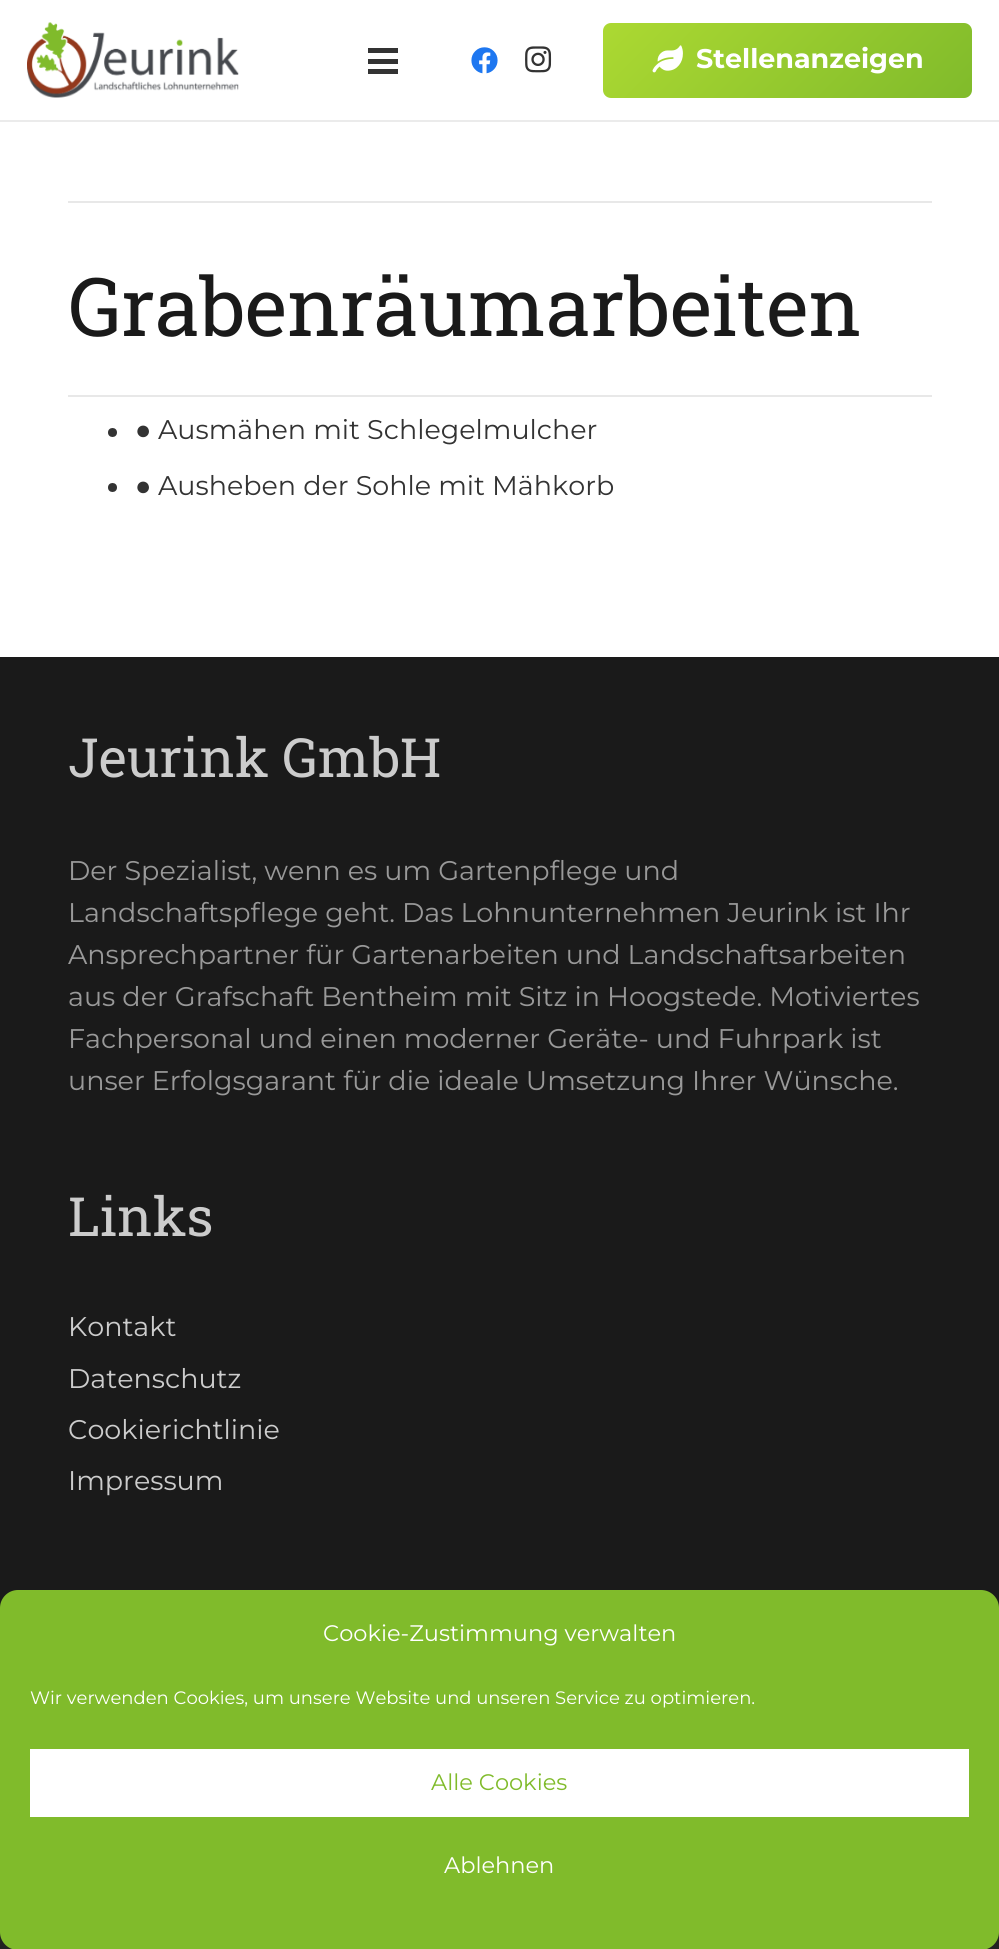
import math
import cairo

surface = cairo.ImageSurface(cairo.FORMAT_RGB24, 999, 1949)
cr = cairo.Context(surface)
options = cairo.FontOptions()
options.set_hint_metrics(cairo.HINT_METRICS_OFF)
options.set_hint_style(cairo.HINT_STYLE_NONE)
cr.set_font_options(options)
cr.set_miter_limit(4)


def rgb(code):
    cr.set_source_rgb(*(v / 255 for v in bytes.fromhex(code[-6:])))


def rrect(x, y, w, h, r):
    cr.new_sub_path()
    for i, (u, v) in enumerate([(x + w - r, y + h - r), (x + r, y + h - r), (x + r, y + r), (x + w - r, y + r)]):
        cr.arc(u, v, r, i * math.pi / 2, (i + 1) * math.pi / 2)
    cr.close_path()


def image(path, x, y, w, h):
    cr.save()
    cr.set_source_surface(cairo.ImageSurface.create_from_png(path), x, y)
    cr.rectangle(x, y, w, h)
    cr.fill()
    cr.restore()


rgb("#ffffff")
cr.paint()
rgb("#ebebeb")
cr.rectangle(0, 120, 999, 2)
cr.fill()
image("img/1.png", 27, 22, 212, 76)
for x, y, w, h, color in [
    (368, 59, 30, 5, "#333333"),
    (368, 48, 30, 5, "#333333"),
    (368, 69, 30, 5, "#333333"),
]:
    rgb(color)
    cr.rectangle(x, y, w, h)
    cr.fill()
image("img/2.png", 471, 47, 27, 27)
image("img/3.png", 525, 46, 27, 27)
gradient = cairo.LinearGradient(677, -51, 899, 171)
gradient.add_color_stop_rgba(0, 0.675, 0.851, 0.196, 1)
gradient.add_color_stop_rgba(1, 0.502, 0.733, 0.169, 1)
cr.set_source(gradient)
rrect(603, 23, 369, 75, 8)
cr.fill()
image("img/4.png", 652, 45, 31, 28)
rgb("#e8e8e8")
cr.rectangle(68, 201, 864, 2)
cr.fill()
cr.rectangle(68, 395, 864, 2)
cr.fill()
rgb("#333333")
cr.arc(112.5, 432.5, 4.5, 0, 2 * math.pi)
cr.fill()
cr.arc(112.5, 487.5, 4.5, 0, 2 * math.pi)
cr.fill()
rgb("#1a1a1a")
cr.rectangle(0, 657, 999, 951)
cr.fill()
rgb("#222222")
cr.rectangle(0, 1932, 999, 17)
cr.fill()
rgb("#80bb2b")
rrect(0, 1590, 999, 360, 18)
cr.fill()
rgb("#ffffff")
cr.rectangle(30, 1749, 939, 68)
cr.fill()
cr.select_font_face("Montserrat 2 Thin")
cr.set_font_size(27)
cr.move_to(696, 68)
cr.show_text("Stellenanzeigen")
cr.select_font_face("Roboto Slab")
cr.set_font_size(81)
rgb("#1a1a1a")
cr.move_to(68, 336)
cr.show_text("Grabenräumarbeiten")
cr.select_font_face("Liberation Sans")
cr.set_font_size(27)
rgb("#333333")
cr.move_to(135, 439)
cr.show_text("●")
cr.select_font_face("Montserrat Thin")
cr.move_to(158, 439)
cr.show_text("Ausmähen mit Schlegelmulcher")
cr.select_font_face("Liberation Sans")
cr.move_to(135, 495)
cr.show_text("●")
cr.select_font_face("Montserrat Thin")
cr.move_to(158, 495)
cr.show_text("Ausheben der Sohle mit Mähkorb")
cr.select_font_face("Roboto Slab")
cr.set_font_size(54)
rgb("#cccccc")
cr.move_to(68, 777)
cr.show_text("Jeurink GmbH")
cr.select_font_face("Montserrat Thin")
cr.set_font_size(27)
rgb("#999999")
for x, y, s in [
    (68, 880, "Der Spezialist, wenn es um Gartenpflege und"),
    (68, 922, "Landschaftspflege geht. Das Lohnunternehmen Jeurink ist Ihr"),
    (68, 964, "Ansprechpartner für Gartenarbeiten und Landschaftsarbeiten"),
    (68, 1006, "aus der Grafschaft Bentheim mit Sitz in Hoogstede. Motiviertes"),
    (68, 1048, "Fachpersonal und einen moderner Geräte- und Fuhrpark ist"),
    (68, 1090, "unser Erfolgsgarant für die ideale Umsetzung Ihrer Wünsche."),
]:
    cr.move_to(x, y)
    cr.show_text(s)
cr.select_font_face("Roboto Slab")
cr.set_font_size(54)
rgb("#cccccc")
cr.move_to(68, 1236)
cr.show_text("Links")
cr.select_font_face("Montserrat Thin")
cr.set_font_size(27)
for x, y, s in [
    (68, 1336, "Kontakt"),
    (68, 1388, "Datenschutz"),
    (68, 1439, "Cookierichtlinie"),
    (68, 1490, "Impressum"),
]:
    cr.move_to(x, y)
    cr.show_text(s)
cr.set_font_size(22.5)
rgb("#ffffff")
cr.move_to(323, 1641)
cr.show_text("Cookie-Zustimmung verwalten")
cr.set_font_size(18)
cr.move_to(30, 1704)
cr.show_text("Wir verwenden Cookies, um unsere Website und unseren Service zu optimieren.")
cr.set_font_size(22.5)
rgb("#80bb2b")
cr.move_to(431, 1790)
cr.show_text("Alle Cookies")
rgb("#ffffff")
cr.move_to(444, 1873)
cr.show_text("Ablehnen")
surface.write_to_png("page.png")
